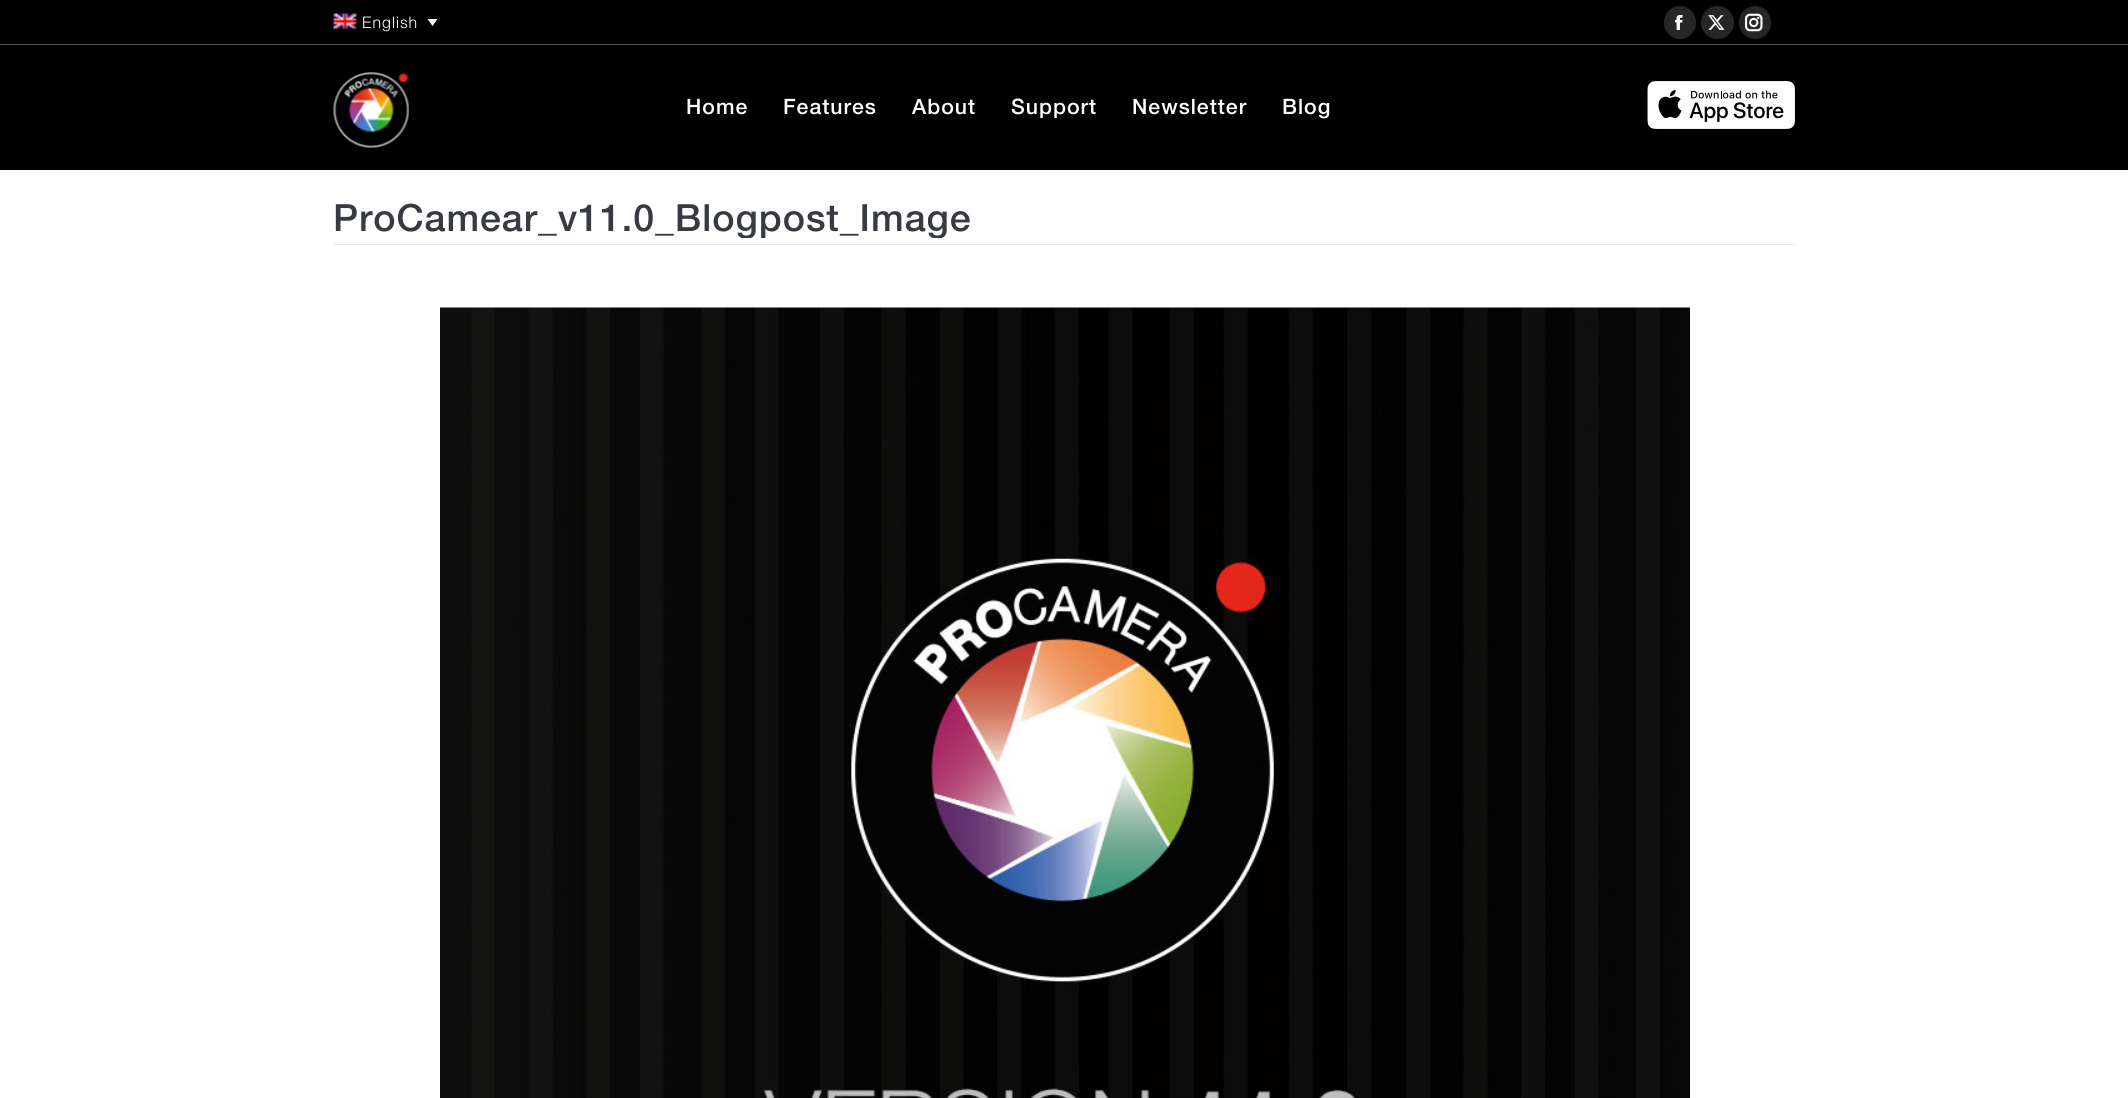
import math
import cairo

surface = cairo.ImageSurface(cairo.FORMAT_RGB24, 2128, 1098)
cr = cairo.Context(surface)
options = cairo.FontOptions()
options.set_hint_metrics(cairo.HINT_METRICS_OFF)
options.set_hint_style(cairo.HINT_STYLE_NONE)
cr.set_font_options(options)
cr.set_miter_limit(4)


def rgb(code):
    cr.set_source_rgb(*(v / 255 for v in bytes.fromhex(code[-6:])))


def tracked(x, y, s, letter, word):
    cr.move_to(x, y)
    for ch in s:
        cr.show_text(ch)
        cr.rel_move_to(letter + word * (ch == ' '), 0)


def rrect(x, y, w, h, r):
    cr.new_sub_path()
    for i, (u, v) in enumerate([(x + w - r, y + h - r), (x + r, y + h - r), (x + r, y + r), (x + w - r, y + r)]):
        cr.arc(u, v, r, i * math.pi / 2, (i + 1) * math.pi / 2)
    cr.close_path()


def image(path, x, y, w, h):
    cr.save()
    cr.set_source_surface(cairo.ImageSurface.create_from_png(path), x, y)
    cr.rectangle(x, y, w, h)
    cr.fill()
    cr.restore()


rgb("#ffffff")
cr.paint()
rgb("#000000")
cr.rectangle(0, 0, 2128, 170)
cr.fill()
image("img/1.png", 333, 13, 24, 17)
rgb("#ffffff")
cr.new_path()
cr.move_to(427.5, 19)
cr.line_to(437.5, 19)
cr.line_to(432.5, 26)
cr.close_path()
cr.fill()
rgb("#262626")
rrect(1664, 6, 32, 33, 16)
cr.fill()
image("img/2.png", 1675, 15, 8, 15)
cr.arc(1717.5, 22.5, 16.5, 0, 2 * math.pi)
cr.fill()
image("img/3.png", 1708, 15, 17, 15)
rrect(1739, 6, 32, 33, 16)
cr.fill()
image("img/4.png", 1745, 13, 18, 19)
rgb("#515151")
cr.rectangle(0, 44, 2128, 1)
cr.fill()
image("img/5.png", 333, 72, 76, 76)
image("img/6.png", 1647, 81, 148, 48)
rgb("#e9e9e9")
cr.rectangle(334, 244, 1462, 1)
cr.fill()
image("img/7.png", 440, 307, 1250, 791)
cr.select_font_face("Helvetica Light")
cr.set_font_size(16)
rgb("#ffffff")
tracked(362, 28, "English", 1, 0)
cr.select_font_face("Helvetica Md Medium")
cr.set_font_size(21.25)
for x, y, s in [
    (686, 114, "Home"),
    (783, 114, "Features"),
    (912, 114, "About"),
    (1011, 114, "Support"),
    (1132, 114, "Newsletter"),
    (1282, 114, "Blog"),
]:
    tracked(x, y, s, 1, 0)
cr.save()
cr.rectangle(334, 198, 637, 40)
cr.clip()
cr.set_font_size(37.5)
rgb("#373a41")
tracked(333, 231, "ProCamear_v11.0_Blogpost_Image", 1, 0)
cr.restore()
surface.write_to_png("page.png")
